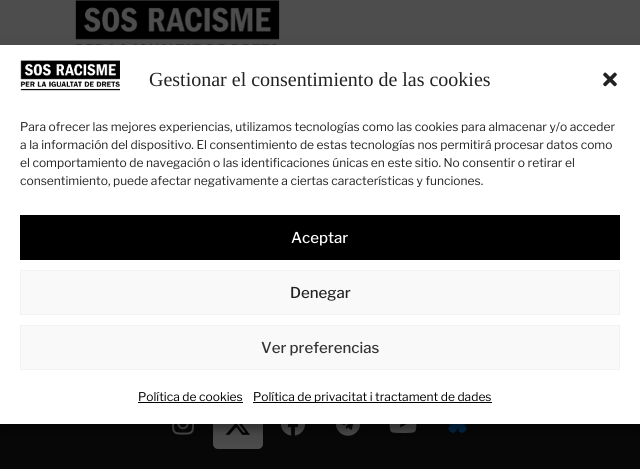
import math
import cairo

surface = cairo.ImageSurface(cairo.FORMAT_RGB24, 640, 469)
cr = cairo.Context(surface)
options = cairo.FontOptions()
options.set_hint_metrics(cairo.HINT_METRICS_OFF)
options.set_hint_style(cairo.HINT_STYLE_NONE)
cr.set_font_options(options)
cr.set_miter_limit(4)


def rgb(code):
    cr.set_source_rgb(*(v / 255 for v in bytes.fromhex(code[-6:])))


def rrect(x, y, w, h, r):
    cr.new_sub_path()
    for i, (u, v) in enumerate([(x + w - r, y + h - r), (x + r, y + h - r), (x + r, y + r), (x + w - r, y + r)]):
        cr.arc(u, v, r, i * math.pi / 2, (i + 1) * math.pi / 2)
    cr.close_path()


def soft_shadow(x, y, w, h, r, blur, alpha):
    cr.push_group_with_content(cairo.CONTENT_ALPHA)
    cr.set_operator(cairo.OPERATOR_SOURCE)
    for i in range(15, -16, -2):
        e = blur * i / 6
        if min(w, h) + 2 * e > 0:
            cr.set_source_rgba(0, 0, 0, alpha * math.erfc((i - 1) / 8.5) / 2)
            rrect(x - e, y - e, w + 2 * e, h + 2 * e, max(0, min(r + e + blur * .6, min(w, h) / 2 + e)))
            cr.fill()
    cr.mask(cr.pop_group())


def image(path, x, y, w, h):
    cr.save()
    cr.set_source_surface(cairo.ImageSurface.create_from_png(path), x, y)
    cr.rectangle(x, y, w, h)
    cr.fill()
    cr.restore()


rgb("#070707")
cr.paint()
rgb("#4d4d4d")
cr.rectangle(0, 0, 640, 45)
cr.fill()
image("img/1.png", 75, 0, 205, 45)
image("img/4.png", 172, 424, 22, 11)
rrect(213, 399, 50, 50, 5)
cr.fill()
image("img/5.png", 225, 424, 25, 11)
image("img/6.png", 280, 424, 26, 12)
image("img/7.png", 335, 424, 26, 12)
image("img/8.png", 389, 424, 28, 9)
image("img/9.png", 448, 424, 19, 9)
rgb("#000000")
soft_shadow(0, 51, 640, 379, 0, 3, 0.23)
soft_shadow(0, 55, 640, 379, 0, 10, 0.19)
rgb("#ffffff")
cr.rectangle(0, 45, 640, 379)
cr.fill()
image("img/2.png", 20, 60, 100, 31)
image("img/3.png", 603, 72, 14, 15)
rgb("#000000")
cr.rectangle(20, 215, 600, 45)
cr.fill()
rgb("#f9f9f9")
cr.rectangle(20.5, 270.5, 599, 44)
cr.fill_preserve()
rgb("#f2f2f2")
cr.set_line_width(1)
cr.stroke()
rgb("#f9f9f9")
cr.rectangle(20.5, 325.5, 599, 44)
cr.fill_preserve()
rgb("#f2f2f2")
cr.stroke()
rgb("#000000")
cr.rectangle(138, 402, 105, 1)
cr.fill()
cr.rectangle(253, 402, 239, 1)
cr.fill()
cr.select_font_face("Liberation Serif")
cr.set_font_size(20)
rgb("#222222")
cr.move_to(149, 86)
cr.show_text("Gestionar el consentimiento de las cookies")
cr.select_font_face("Libre Franklin")
cr.set_font_size(12)
for x, y, s in [
    (20, 131, "Para ofrecer las mejores experiencias, utilizamos tecnologías como las cookies para almacenar y/o acceder"),
    (20, 149, "a la información del dispositivo. El consentimiento de estas tecnologías nos permitirá procesar datos como"),
    (20, 167, "el comportamiento de navegación o las identificaciones únicas en este sitio. No consentir o retirar el"),
    (20, 185, "consentimiento, puede afectar negativamente a ciertas características y funciones."),
]:
    cr.move_to(x, y)
    cr.show_text(s)
cr.select_font_face("Libre Franklin Medium")
cr.set_font_size(15)
rgb("#ffffff")
cr.move_to(291, 243)
cr.show_text("Aceptar")
rgb("#222222")
cr.move_to(290, 298)
cr.show_text("Denegar")
rgb("#333333")
cr.move_to(261, 353)
cr.show_text("Ver preferencias")
cr.select_font_face("Libre Franklin")
cr.set_font_size(12)
rgb("#000000")
cr.move_to(138, 401)
cr.show_text("Política de cookies")
cr.move_to(253, 401)
cr.show_text("Política de privacitat i tractament de dades")
surface.write_to_png("page.png")
